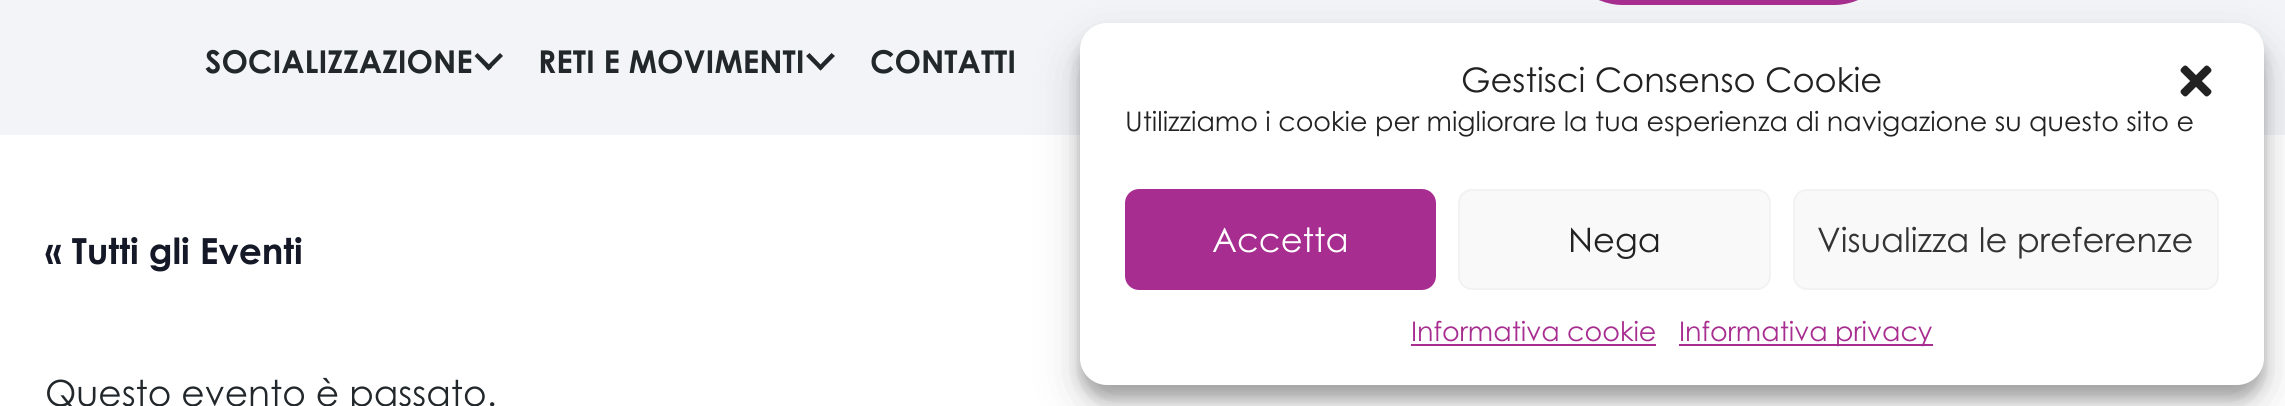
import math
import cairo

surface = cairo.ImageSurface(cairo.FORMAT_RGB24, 2285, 406)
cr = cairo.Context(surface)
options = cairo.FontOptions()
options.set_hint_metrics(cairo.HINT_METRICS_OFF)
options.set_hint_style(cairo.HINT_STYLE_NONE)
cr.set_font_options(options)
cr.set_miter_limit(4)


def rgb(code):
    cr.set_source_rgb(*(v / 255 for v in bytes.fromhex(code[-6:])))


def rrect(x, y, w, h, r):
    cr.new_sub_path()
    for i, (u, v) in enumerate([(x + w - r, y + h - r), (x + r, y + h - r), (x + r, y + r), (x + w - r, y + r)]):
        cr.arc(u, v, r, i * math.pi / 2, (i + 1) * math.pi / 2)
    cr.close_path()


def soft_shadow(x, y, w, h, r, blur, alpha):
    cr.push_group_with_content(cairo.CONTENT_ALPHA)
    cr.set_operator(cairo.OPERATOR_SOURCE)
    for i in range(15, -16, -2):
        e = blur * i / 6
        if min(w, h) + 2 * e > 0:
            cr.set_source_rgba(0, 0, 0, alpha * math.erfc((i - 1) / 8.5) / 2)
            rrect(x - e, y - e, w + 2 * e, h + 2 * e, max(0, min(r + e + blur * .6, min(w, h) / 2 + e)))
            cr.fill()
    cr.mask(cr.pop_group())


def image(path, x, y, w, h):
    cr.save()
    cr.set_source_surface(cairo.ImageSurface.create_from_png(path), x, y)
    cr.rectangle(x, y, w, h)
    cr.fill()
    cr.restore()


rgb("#ffffff")
cr.paint()
rgb("#f2f4f8")
cr.rectangle(0, 0, 2285, 135)
cr.fill()
rrect(1564.5, -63.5, 328, 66, 58.5)
rgb("#a72e90")
cr.set_line_width(5)
cr.stroke()
rgb("#21272a")
cr.new_path()
cr.move_to(500, 53)
cr.line_to(503, 56)
cr.line_to(488.5, 70.5)
cr.line_to(485.5, 67.5)
cr.close_path()
cr.fill()
cr.new_path()
cr.move_to(477.5, 53)
cr.line_to(492, 67.5)
cr.line_to(488.5, 70.5)
cr.line_to(474.5, 56)
cr.close_path()
cr.fill()
cr.new_path()
cr.move_to(831.5, 53)
cr.line_to(835, 56)
cr.line_to(820.5, 70.5)
cr.line_to(817.5, 67.5)
cr.close_path()
cr.fill()
cr.new_path()
cr.move_to(809.5, 53)
cr.line_to(823.5, 67.5)
cr.line_to(820.5, 70.5)
cr.line_to(806, 56)
cr.close_path()
cr.fill()
rgb("#000000")
soft_shadow(1080, 36, 1184, 362, 27, 7, 0.23)
soft_shadow(1080, 45, 1184, 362, 27, 22.5, 0.19)
rgb("#ffffff")
rrect(1080, 23, 1184, 362, 27)
cr.fill()
image("img/1.png", 2180, 65, 32, 32)
rgb("#a72e90")
rrect(1126, 190, 309, 99, 13)
cr.fill_preserve()
cr.set_line_width(2)
cr.stroke()
rgb("#f9f9f9")
rrect(1459, 190, 311, 99, 13)
cr.fill_preserve()
rgb("#f2f2f2")
cr.stroke()
rgb("#f9f9f9")
rrect(1794, 190, 424, 99, 13)
cr.fill_preserve()
rgb("#f2f2f2")
cr.stroke()
rgb("#a72e90")
cr.rectangle(1411, 344, 245, 2)
cr.fill()
cr.rectangle(1679, 344, 254, 2)
cr.fill()
cr.select_font_face("Century Gothic", cairo.FONT_SLANT_NORMAL, cairo.FONT_WEIGHT_BOLD)
cr.set_font_size(31.5)
rgb("#21272a")
for x, y, s in [
    (205, 73, "SOCIALIZZAZIONE"),
    (538, 73, "RETI E MOVIMENTI"),
    (870, 73, "CONTATTI"),
]:
    cr.move_to(x, y)
    cr.show_text(s)
cr.set_font_size(36)
rgb("#141827")
cr.move_to(45, 264)
cr.show_text("« Tutti gli Eventi")
cr.select_font_face("Century Gothic")
rgb("#21272a")
cr.move_to(45, 406)
cr.show_text("Questo evento è passato.")
cr.set_font_size(33.75)
rgb("#222222")
cr.move_to(1461, 92)
cr.show_text("Gestisci Consenso Cookie")
cr.set_font_size(27)
cr.move_to(1125, 131)
cr.show_text("Utilizziamo i cookie per migliorare la tua esperienza di navigazione su questo sito e")
cr.set_font_size(33.75)
rgb("#ffffff")
cr.move_to(1212, 252)
cr.show_text("Accetta")
rgb("#222222")
cr.move_to(1568, 252)
cr.show_text("Nega")
rgb("#333333")
cr.move_to(1817, 252)
cr.show_text("Visualizza le preferenze")
cr.set_font_size(27)
rgb("#a72e90")
cr.move_to(1411, 341)
cr.show_text("Informativa cookie")
cr.move_to(1679, 341)
cr.show_text("Informativa privacy")
surface.write_to_png("page.png")
